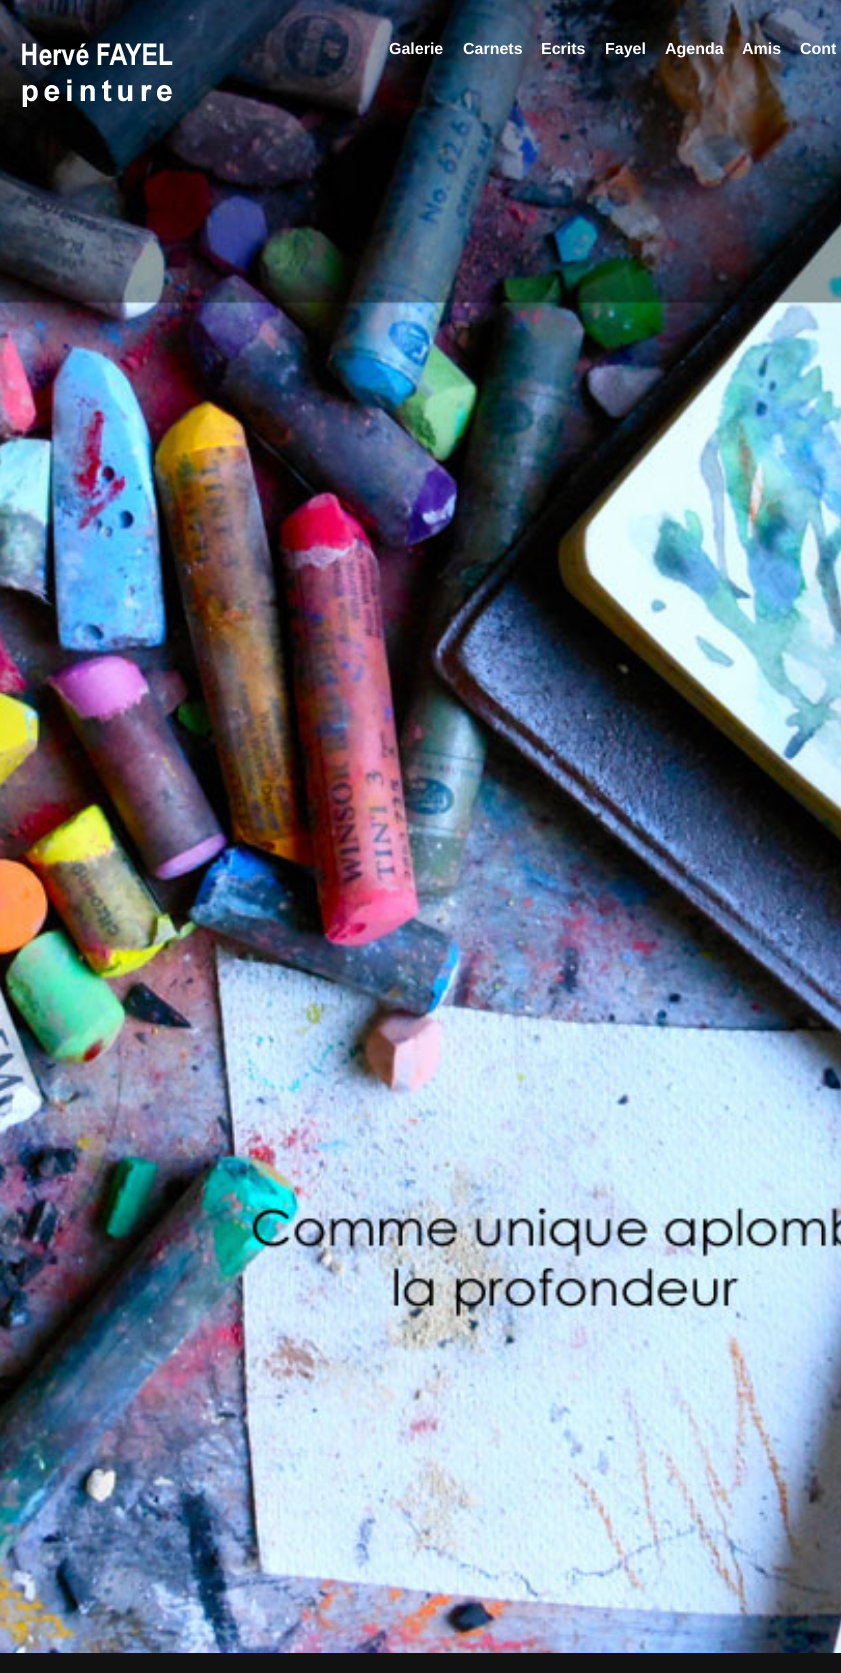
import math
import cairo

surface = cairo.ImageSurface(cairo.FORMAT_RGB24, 841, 1673)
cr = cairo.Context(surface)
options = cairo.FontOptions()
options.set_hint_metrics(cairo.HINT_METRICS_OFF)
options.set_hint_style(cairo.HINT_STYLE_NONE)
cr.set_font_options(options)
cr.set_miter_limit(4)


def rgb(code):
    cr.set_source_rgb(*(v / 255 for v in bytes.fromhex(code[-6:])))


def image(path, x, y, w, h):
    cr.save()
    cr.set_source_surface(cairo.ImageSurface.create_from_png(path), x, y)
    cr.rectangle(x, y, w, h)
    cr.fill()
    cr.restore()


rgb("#111111")
cr.paint()
image("img/1.png", 0, 0, 841, 1653)
image("img/2.png", 22, 43, 151, 64)
cr.select_font_face("Liberation Sans", cairo.FONT_SLANT_NORMAL, cairo.FONT_WEIGHT_BOLD)
cr.set_font_size(16)
rgb("#ffffff")
for x, y, s in [
    (389, 54, "Galerie"),
    (463, 54, "Carnets"),
    (541, 54, "Ecrits"),
    (605, 54, "Fayel"),
    (665, 54, "Agenda"),
    (742, 54, "Amis"),
    (800, 54, "Cont"),
]:
    cr.move_to(x, y)
    cr.show_text(s)
surface.write_to_png("page.png")
